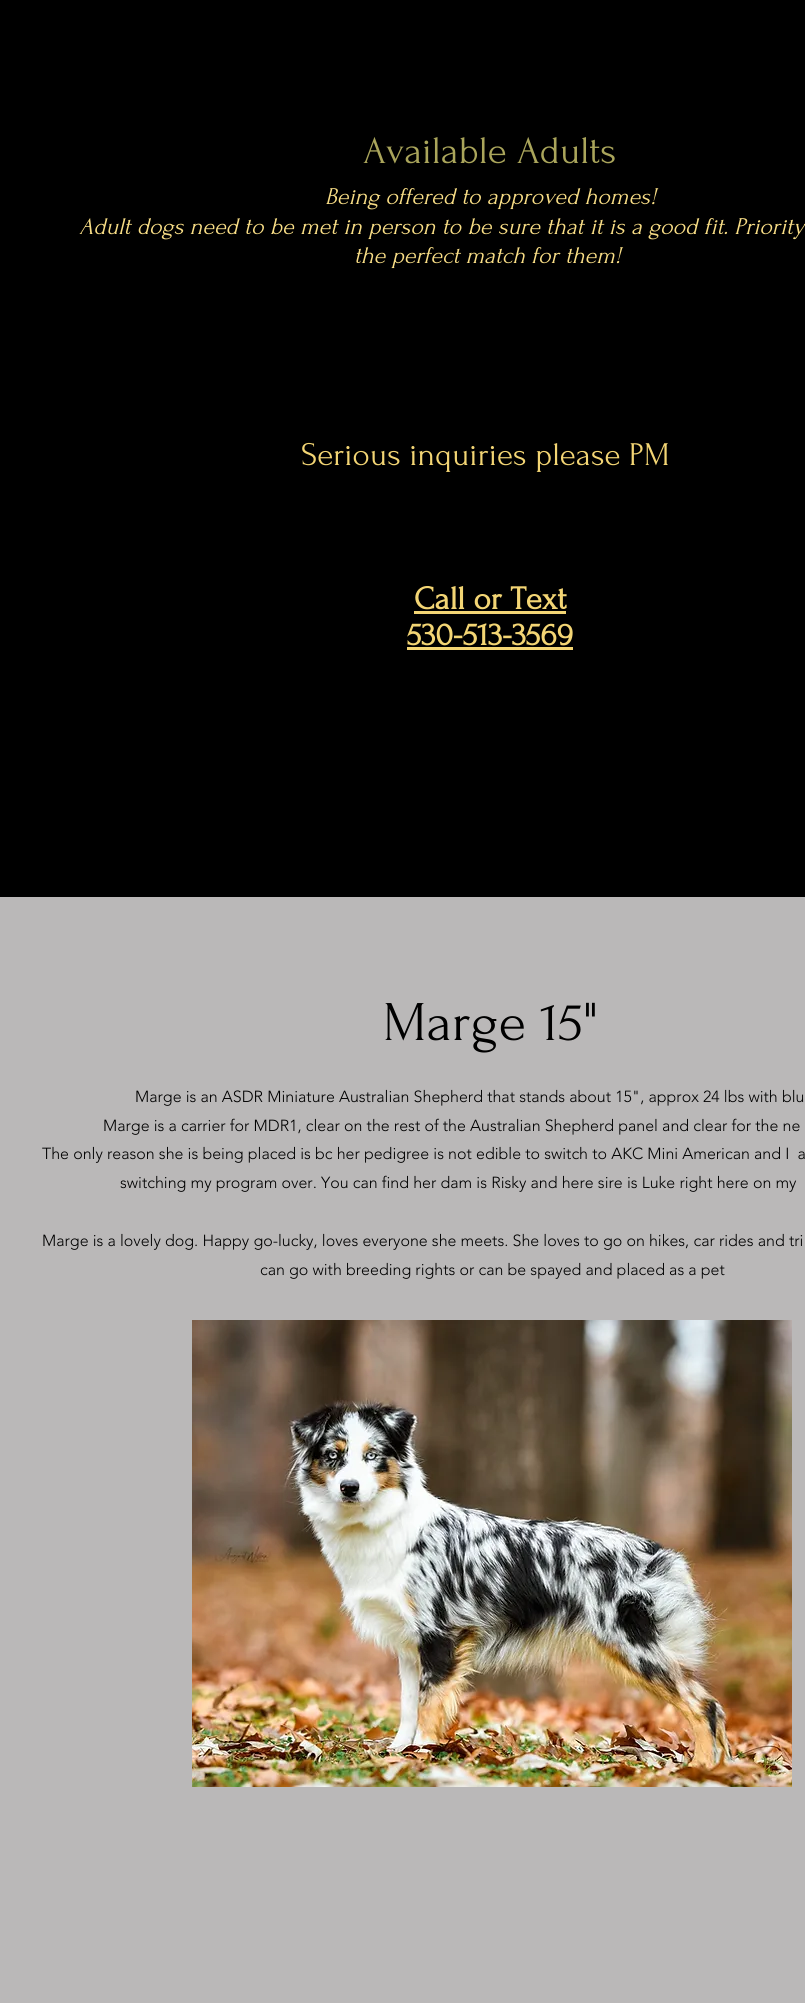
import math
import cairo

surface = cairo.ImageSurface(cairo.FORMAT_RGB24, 805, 2003)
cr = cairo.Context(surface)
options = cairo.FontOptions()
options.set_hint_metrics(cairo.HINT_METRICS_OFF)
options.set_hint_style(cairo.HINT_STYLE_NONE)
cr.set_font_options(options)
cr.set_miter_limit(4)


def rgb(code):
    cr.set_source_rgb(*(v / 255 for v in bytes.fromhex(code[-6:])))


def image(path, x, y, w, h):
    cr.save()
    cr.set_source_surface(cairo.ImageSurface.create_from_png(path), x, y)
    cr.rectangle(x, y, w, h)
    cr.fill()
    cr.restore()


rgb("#000000")
cr.paint()
for x, y, w, h, color in [
    (414, 611, 152, 3, "#f3d574"),
    (407, 647, 166, 3, "#f3d574"),
    (0, 897, 805, 1106, "#bab8b8"),
]:
    rgb(color)
    cr.rectangle(x, y, w, h)
    cr.fill()
image("img/1.png", 192, 1320, 600, 467)
cr.select_font_face("Forum")
cr.set_font_size(39)
rgb("#aaa55b")
cr.move_to(363, 163)
cr.show_text("Available Adults")
cr.select_font_face("Forum", cairo.FONT_SLANT_ITALIC)
cr.set_font_size(24)
rgb("#f9de86")
for x, y, s in [
    (325, 204, "Being offered to approved homes!"),
    (79, 234, "Adult dogs need to be met in person to be sure that it is a good fit. Priority"),
    (354, 263, "the perfect match for them!"),
]:
    cr.move_to(x, y)
    cr.show_text(s)
cr.select_font_face("Forum")
cr.set_font_size(33)
rgb("#f3d574")
cr.move_to(301, 465)
cr.show_text("Serious inquiries please PM")
cr.select_font_face("Forum", cairo.FONT_SLANT_NORMAL, cairo.FONT_WEIGHT_BOLD)
cr.move_to(414, 609)
cr.show_text("Call or Text")
cr.move_to(407, 645)
cr.show_text("530-513-3569")
cr.select_font_face("Forum")
cr.set_font_size(56)
rgb("#000000")
cr.move_to(383, 1040)
cr.show_text("Marge 15\"")
cr.select_font_face("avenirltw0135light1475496 Light")
cr.set_font_size(16)
for x, y, s in [
    (135, 1102, "Marge is an ASDR Miniature Australian Shepherd that stands about 15\", approx 24 lbs with blu"),
    (103, 1131, "Marge is a carrier for MDR1, clear on the rest of the Australian Shepherd panel and clear for the ne"),
    (42, 1159, "The only reason she is being placed is bc her pedigree is not edible to switch to AKC Mini American and I  a"),
    (120, 1188, "switching my program over. You can find her dam is Risky and here sire is Luke right here on my"),
    (42, 1246, "Marge is a lovely dog. Happy go-lucky, loves everyone she meets. She loves to go on hikes, car rides and tri"),
    (260, 1275, "can go with breeding rights or can be spayed and placed as a pet"),
]:
    cr.move_to(x, y)
    cr.show_text(s)
surface.write_to_png("page.png")
